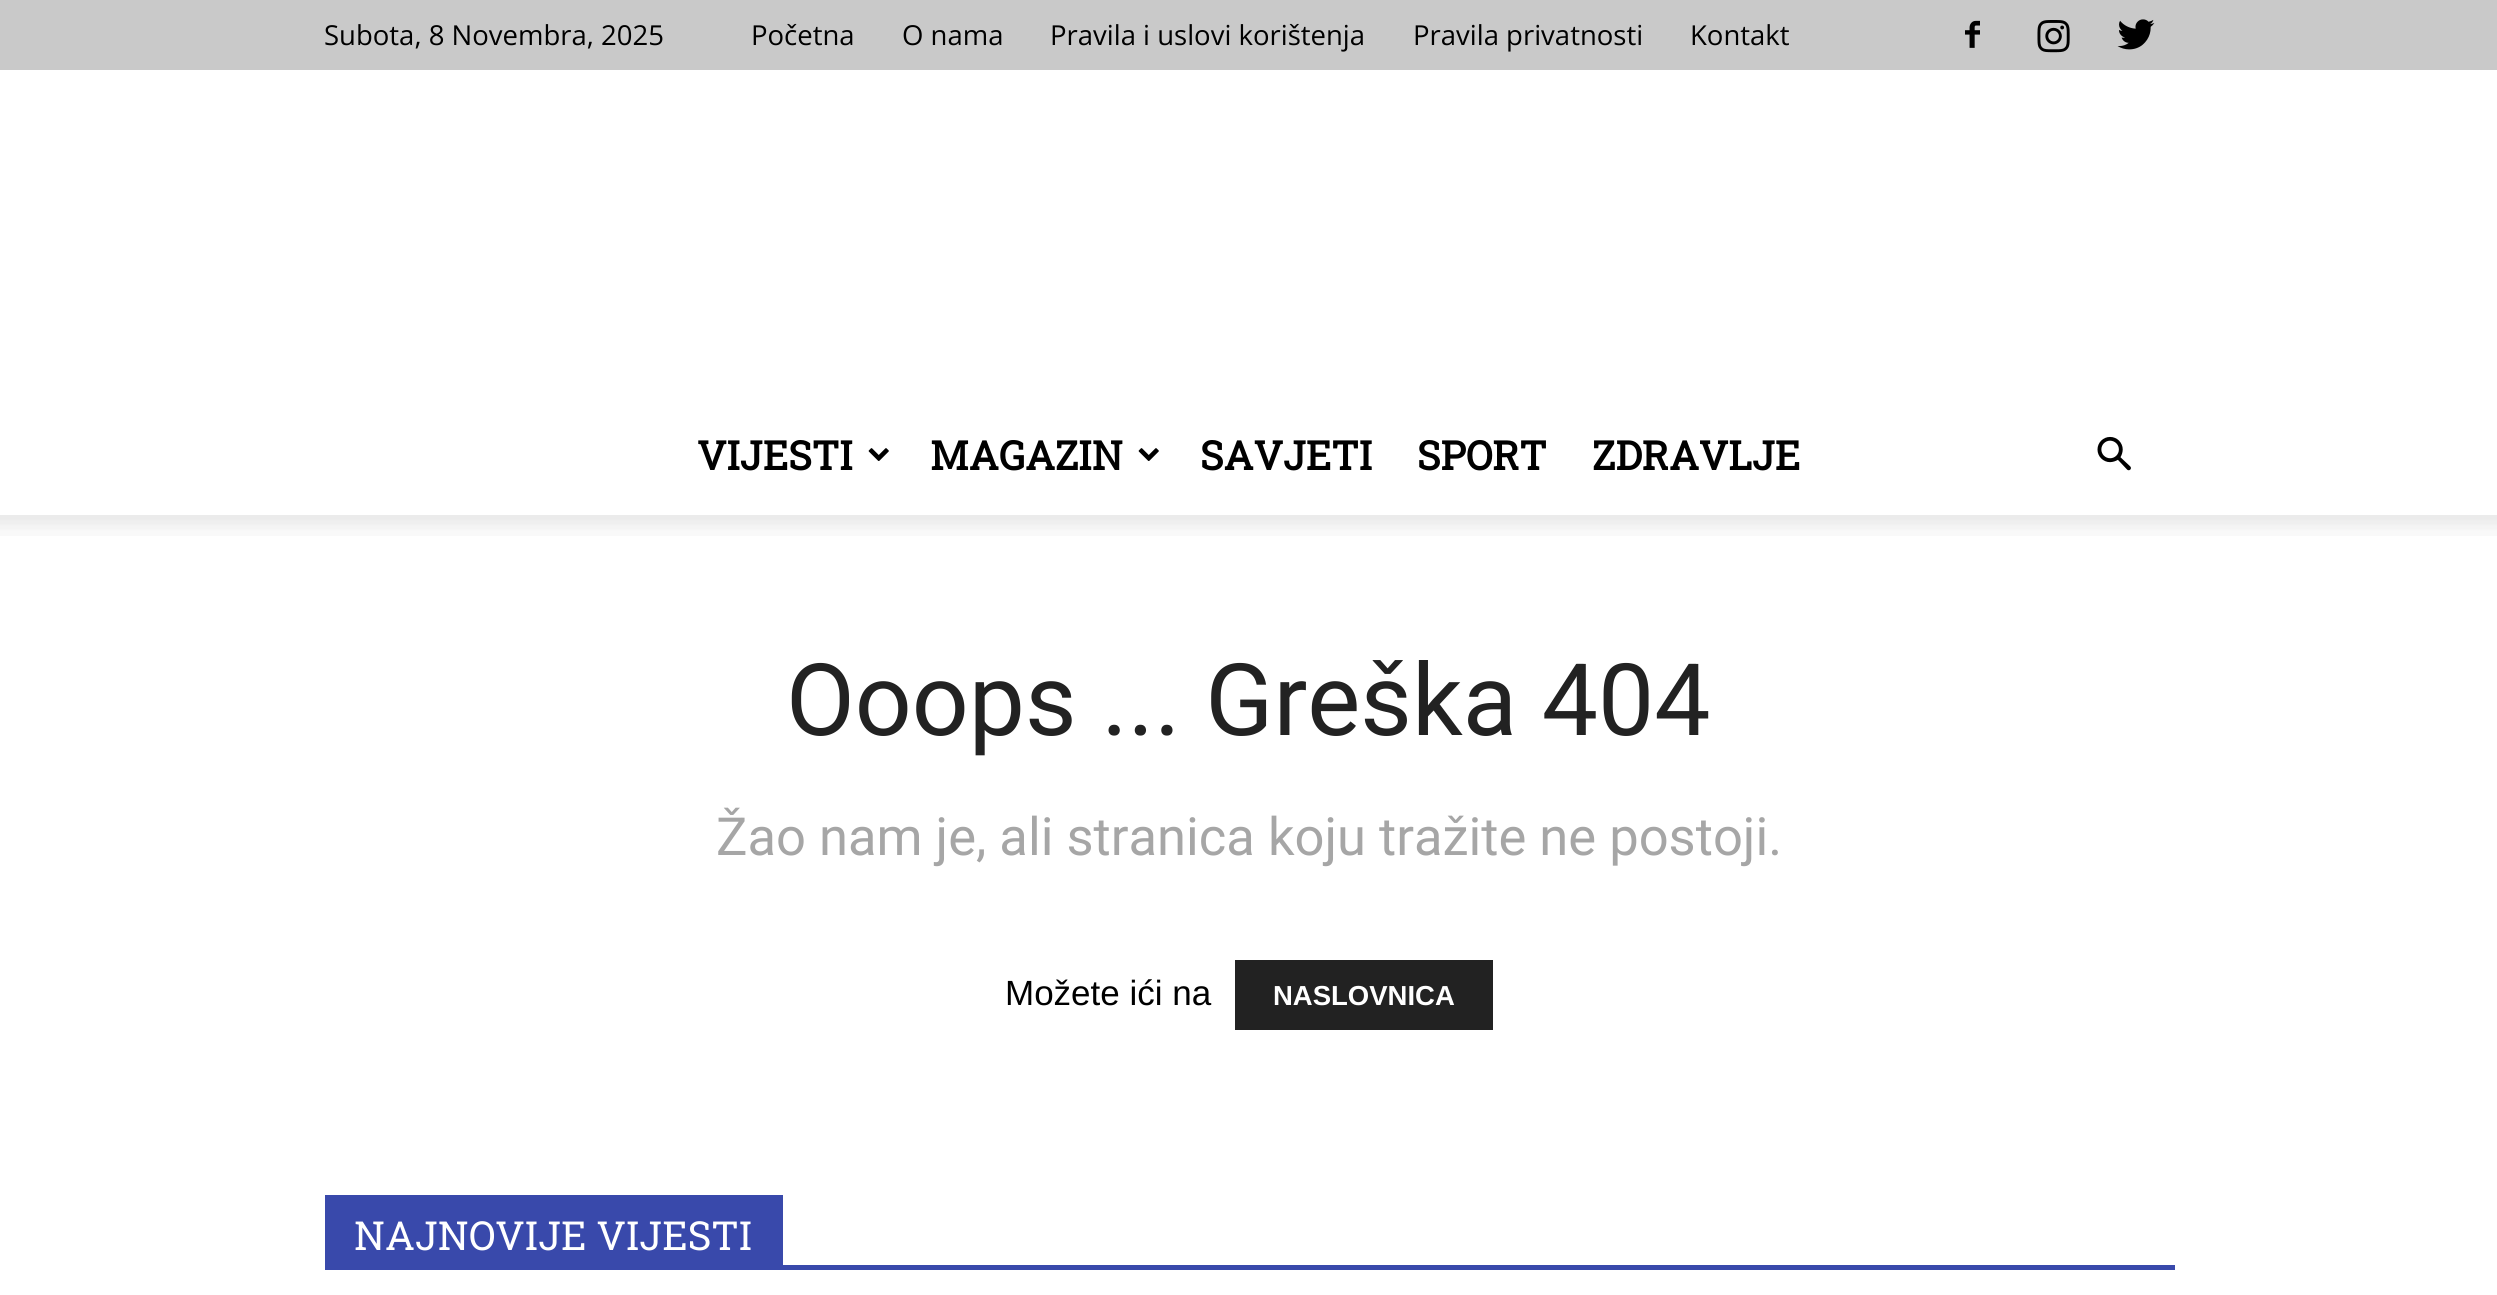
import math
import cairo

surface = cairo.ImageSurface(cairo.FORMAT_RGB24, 2497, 1295)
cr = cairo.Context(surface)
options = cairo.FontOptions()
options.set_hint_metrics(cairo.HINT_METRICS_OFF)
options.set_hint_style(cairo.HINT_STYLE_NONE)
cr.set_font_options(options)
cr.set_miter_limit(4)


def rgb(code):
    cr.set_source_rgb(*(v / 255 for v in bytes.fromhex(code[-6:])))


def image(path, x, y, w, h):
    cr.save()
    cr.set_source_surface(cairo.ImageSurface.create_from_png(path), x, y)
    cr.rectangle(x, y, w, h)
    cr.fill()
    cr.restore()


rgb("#ffffff")
cr.paint()
rgb("#c9c9c9")
cr.rectangle(0, 0, 2497, 70)
cr.fill()
image("img/1.png", 1965, 20, 15, 28)
image("img/2.png", 2037, 20, 33, 33)
image("img/3.png", 2117, 19, 38, 31)
image("img/4.png", 868, 448, 21, 13)
image("img/4.png", 1138, 448, 21, 13)
image("img/5.png", 2097, 436, 34, 35)
image("img/6.png", 0, 515, 2497, 21)
for x, y, w, h, color in [
    (1235, 960, 258, 70, "#222222"),
    (325, 1265, 1850, 5, "#3949ab"),
    (325, 1195, 458, 70, "#3949ab"),
]:
    rgb(color)
    cr.rectangle(x, y, w, h)
    cr.fill()
cr.select_font_face("Open Sans")
cr.set_font_size(27.5)
rgb("#000000")
for x, y, s in [
    (324, 45, "Subota, 8 Novembra, 2025"),
    (751, 45, "Početna"),
    (902, 45, "O nama"),
    (1050, 45, "Pravila i uslovi korištenja"),
    (1413, 45, "Pravila privatnosti"),
    (1690, 45, "Kontakt"),
]:
    cr.move_to(x, y)
    cr.show_text(s)
cr.select_font_face("Roboto Slab", cairo.FONT_SLANT_NORMAL, cairo.FONT_WEIGHT_BOLD)
cr.set_font_size(40)
for x, y, s in [
    (697, 470, "VIJESTI"),
    (930, 470, "MAGAZIN"),
    (1200, 470, "SAVJETI"),
    (1417, 470, "SPORT"),
    (1592, 470, "ZDRAVLJE"),
]:
    cr.move_to(x, y)
    cr.show_text(s)
cr.select_font_face("Roboto")
cr.set_font_size(100)
rgb("#222222")
cr.move_to(786, 735)
cr.show_text("Ooops ... Greška 404")
cr.set_font_size(52.5)
rgb("#a6a6a6")
cr.move_to(716, 855)
cr.show_text("Žao nam je, ali stranica koju tražite ne postoji.")
cr.select_font_face("Liberation Sans")
cr.set_font_size(35)
rgb("#000000")
cr.move_to(1005, 1005)
cr.show_text("Možete ići na")
cr.select_font_face("Liberation Sans", cairo.FONT_SLANT_NORMAL, cairo.FONT_WEIGHT_BOLD)
cr.set_font_size(27.5)
rgb("#ffffff")
cr.move_to(1273, 1005)
cr.show_text("NASLOVNICA")
cr.select_font_face("Roboto Slab")
cr.set_font_size(40)
cr.move_to(354, 1250)
cr.show_text("NAJNOVIJE VIJESTI")
surface.write_to_png("page.png")
